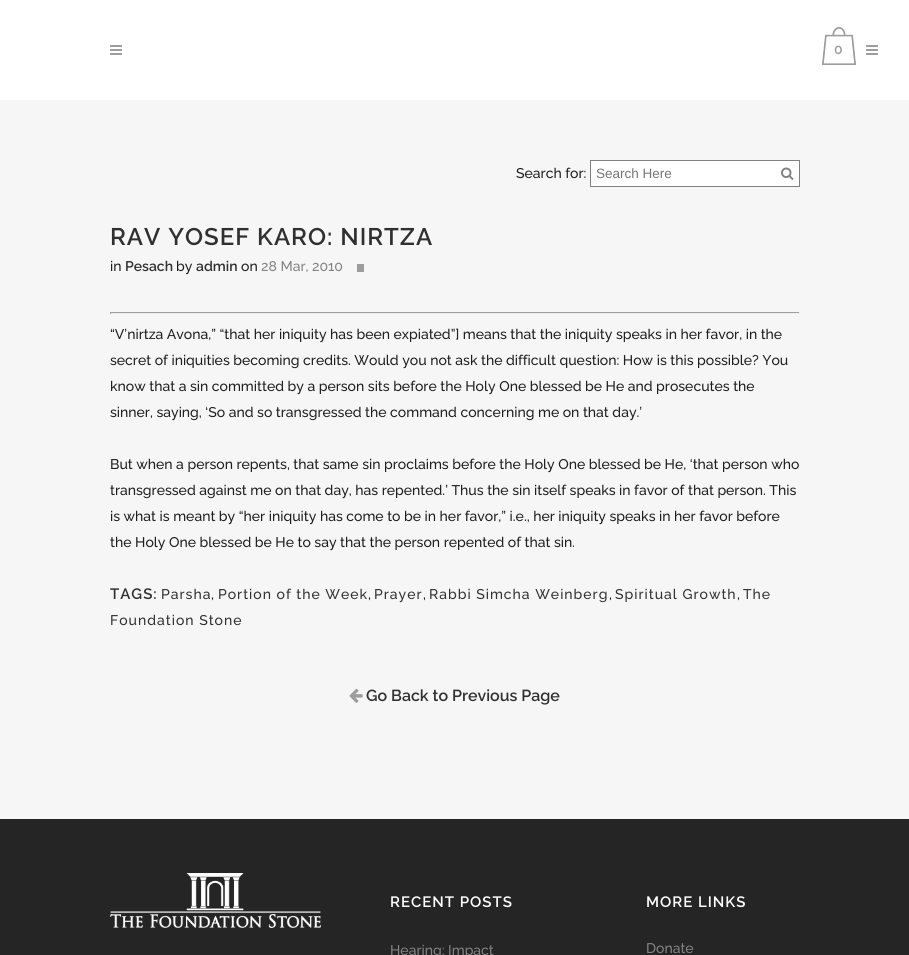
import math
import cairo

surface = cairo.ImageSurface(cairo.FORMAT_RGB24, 909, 955)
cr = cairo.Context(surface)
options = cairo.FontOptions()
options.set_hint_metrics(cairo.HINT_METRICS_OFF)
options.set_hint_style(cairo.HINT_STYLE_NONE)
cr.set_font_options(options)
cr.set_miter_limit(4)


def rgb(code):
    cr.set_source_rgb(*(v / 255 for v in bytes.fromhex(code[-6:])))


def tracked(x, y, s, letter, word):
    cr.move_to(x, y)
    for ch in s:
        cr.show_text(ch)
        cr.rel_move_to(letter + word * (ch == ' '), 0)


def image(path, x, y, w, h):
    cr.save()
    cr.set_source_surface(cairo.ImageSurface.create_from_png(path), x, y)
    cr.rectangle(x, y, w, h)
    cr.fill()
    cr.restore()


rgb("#f6f6f6")
cr.paint()
rgb("#ffffff")
cr.rectangle(0, 0, 909, 100)
cr.fill()
image("img/1.png", 110, 45, 12, 10)
image("img/2.png", 822, 27, 34, 38)
image("img/1.png", 866, 45, 12, 10)
for x, y, w, h, color in [
    (591, 161, 208, 25, "#ffffff"),
    (590, 160, 210, 1, "#818181"),
    (590, 186, 188, 1, "#818181"),
    (590, 160, 1, 27, "#818181"),
    (799, 160, 1, 27, "#818181"),
    (776, 186, 24, 1, "#818181"),
]:
    rgb(color)
    cr.rectangle(x, y, w, h)
    cr.fill()
image("img/3.png", 781, 167, 13, 13)
for x, y, w, h, color in [
    (357, 264, 7, 8, "#9d9d9d"),
    (110, 312, 690, 1, "#9f9f9f"),
    (799, 312, 1, 2, "#eeeeee"),
    (110, 313, 690, 1, "#eeeeee"),
    (110, 312, 1, 2, "#9f9f9f"),
]:
    rgb(color)
    cr.rectangle(x, y, w, h)
    cr.fill()
image("img/4.png", 349, 688, 14, 15)
rgb("#252525")
cr.rectangle(0, 819, 909, 136)
cr.fill()
image("img/5.png", 110, 873, 211, 55)
cr.select_font_face("Raleway SemiBold")
cr.set_font_size(14)
rgb("#9d9d9d")
cr.move_to(834, 54)
cr.show_text("0")
cr.select_font_face("Raleway Medium")
rgb("#1f1e1e")
cr.move_to(516, 178)
cr.show_text("Search for:")
cr.select_font_face("Liberation Sans")
cr.set_font_size(13.5)
rgb("#757575")
cr.move_to(596, 178)
cr.show_text("Search Here")
cr.select_font_face("Raleway SemiBold")
cr.set_font_size(24)
rgb("#303030")
tracked(110, 245, "RAV YOSEF KARO: NIRTZA", 1, 0)
cr.select_font_face("Raleway Medium")
cr.set_font_size(14)
rgb("#1f1e1e")
cr.move_to(110, 271)
cr.show_text("in")
cr.select_font_face("Raleway SemiBold")
rgb("#303030")
cr.move_to(125, 271)
cr.show_text("Pesach")
cr.select_font_face("Raleway Medium")
rgb("#1f1e1e")
cr.move_to(176, 271)
cr.show_text("by")
cr.select_font_face("Raleway SemiBold")
rgb("#303030")
cr.move_to(196, 271)
cr.show_text("admin")
cr.select_font_face("Raleway Medium")
rgb("#1f1e1e")
cr.move_to(241, 271)
cr.show_text("on")
rgb("#838383")
cr.move_to(261, 271)
cr.show_text("28 Mar, 2010")
rgb("#1f1e1e")
for x, y, s in [
    (110, 339, "“V’nirtza Avona,” “that her iniquity has been expiated”] means that the iniquity speaks in her favor, in the"),
    (110, 365, "secret of iniquities becoming credits. Would you not ask the difficult question: How is this possible? You"),
    (110, 391, "know that a sin committed by a person sits before the Holy One blessed be He and prosecutes the"),
    (110, 417, "sinner, saying, ‘So and so transgressed the command concerning me on that day.’"),
    (110, 469, "But when a person repents, that same sin proclaims before the Holy One blessed be He, ‘that person who"),
    (110, 495, "transgressed against me on that day, has repented.’ Thus the sin itself speaks in favor of that person. This"),
    (110, 521, "is what is meant by “her iniquity has come to be in her favor,” i.e., her iniquity speaks in her favor before"),
    (110, 547, "the Holy One blessed be He to say that the person repented of that sin."),
]:
    cr.move_to(x, y)
    cr.show_text(s)
cr.select_font_face("Raleway SemiBold")
cr.set_font_size(15)
rgb("#303030")
tracked(110, 599, "TAGS:", 1, 0)
cr.select_font_face("Raleway Medium")
cr.set_font_size(14)
tracked(161, 599, "Parsha", 1, 0)
rgb("#1f1e1e")
cr.move_to(211, 599)
cr.show_text(",")
rgb("#303030")
tracked(218, 599, "Portion of the Week", 1, 0)
rgb("#1f1e1e")
cr.move_to(368, 599)
cr.show_text(",")
rgb("#303030")
tracked(374, 599, "Prayer", 1, 0)
rgb("#1f1e1e")
cr.move_to(423, 599)
cr.show_text(",")
rgb("#303030")
tracked(429, 599, "Rabbi Simcha Weinberg", 1, 0)
rgb("#1f1e1e")
cr.move_to(609, 599)
cr.show_text(",")
rgb("#303030")
tracked(615, 599, "Spiritual Growth", 1, 0)
rgb("#1f1e1e")
cr.move_to(737, 599)
cr.show_text(",")
rgb("#303030")
tracked(743, 599, "The", 1, 0)
tracked(110, 625, "Foundation Stone", 1, 0)
cr.select_font_face("Raleway SemiBold")
cr.set_font_size(16)
cr.move_to(366, 701)
cr.show_text("Go Back to Previous Page")
cr.set_font_size(15)
rgb("#ffffff")
tracked(390, 907, "RECENT POSTS", 1, 0)
cr.select_font_face("Raleway Medium")
cr.set_font_size(14)
rgb("#838383")
cr.move_to(390, 955)
cr.show_text("Hearing: Impact")
cr.select_font_face("Raleway SemiBold")
cr.set_font_size(15)
rgb("#ffffff")
tracked(646, 907, "MORE LINKS", 1, 0)
cr.select_font_face("Raleway Medium")
cr.set_font_size(14)
rgb("#838383")
cr.move_to(646, 953)
cr.show_text("Donate")
surface.write_to_png("page.png")
